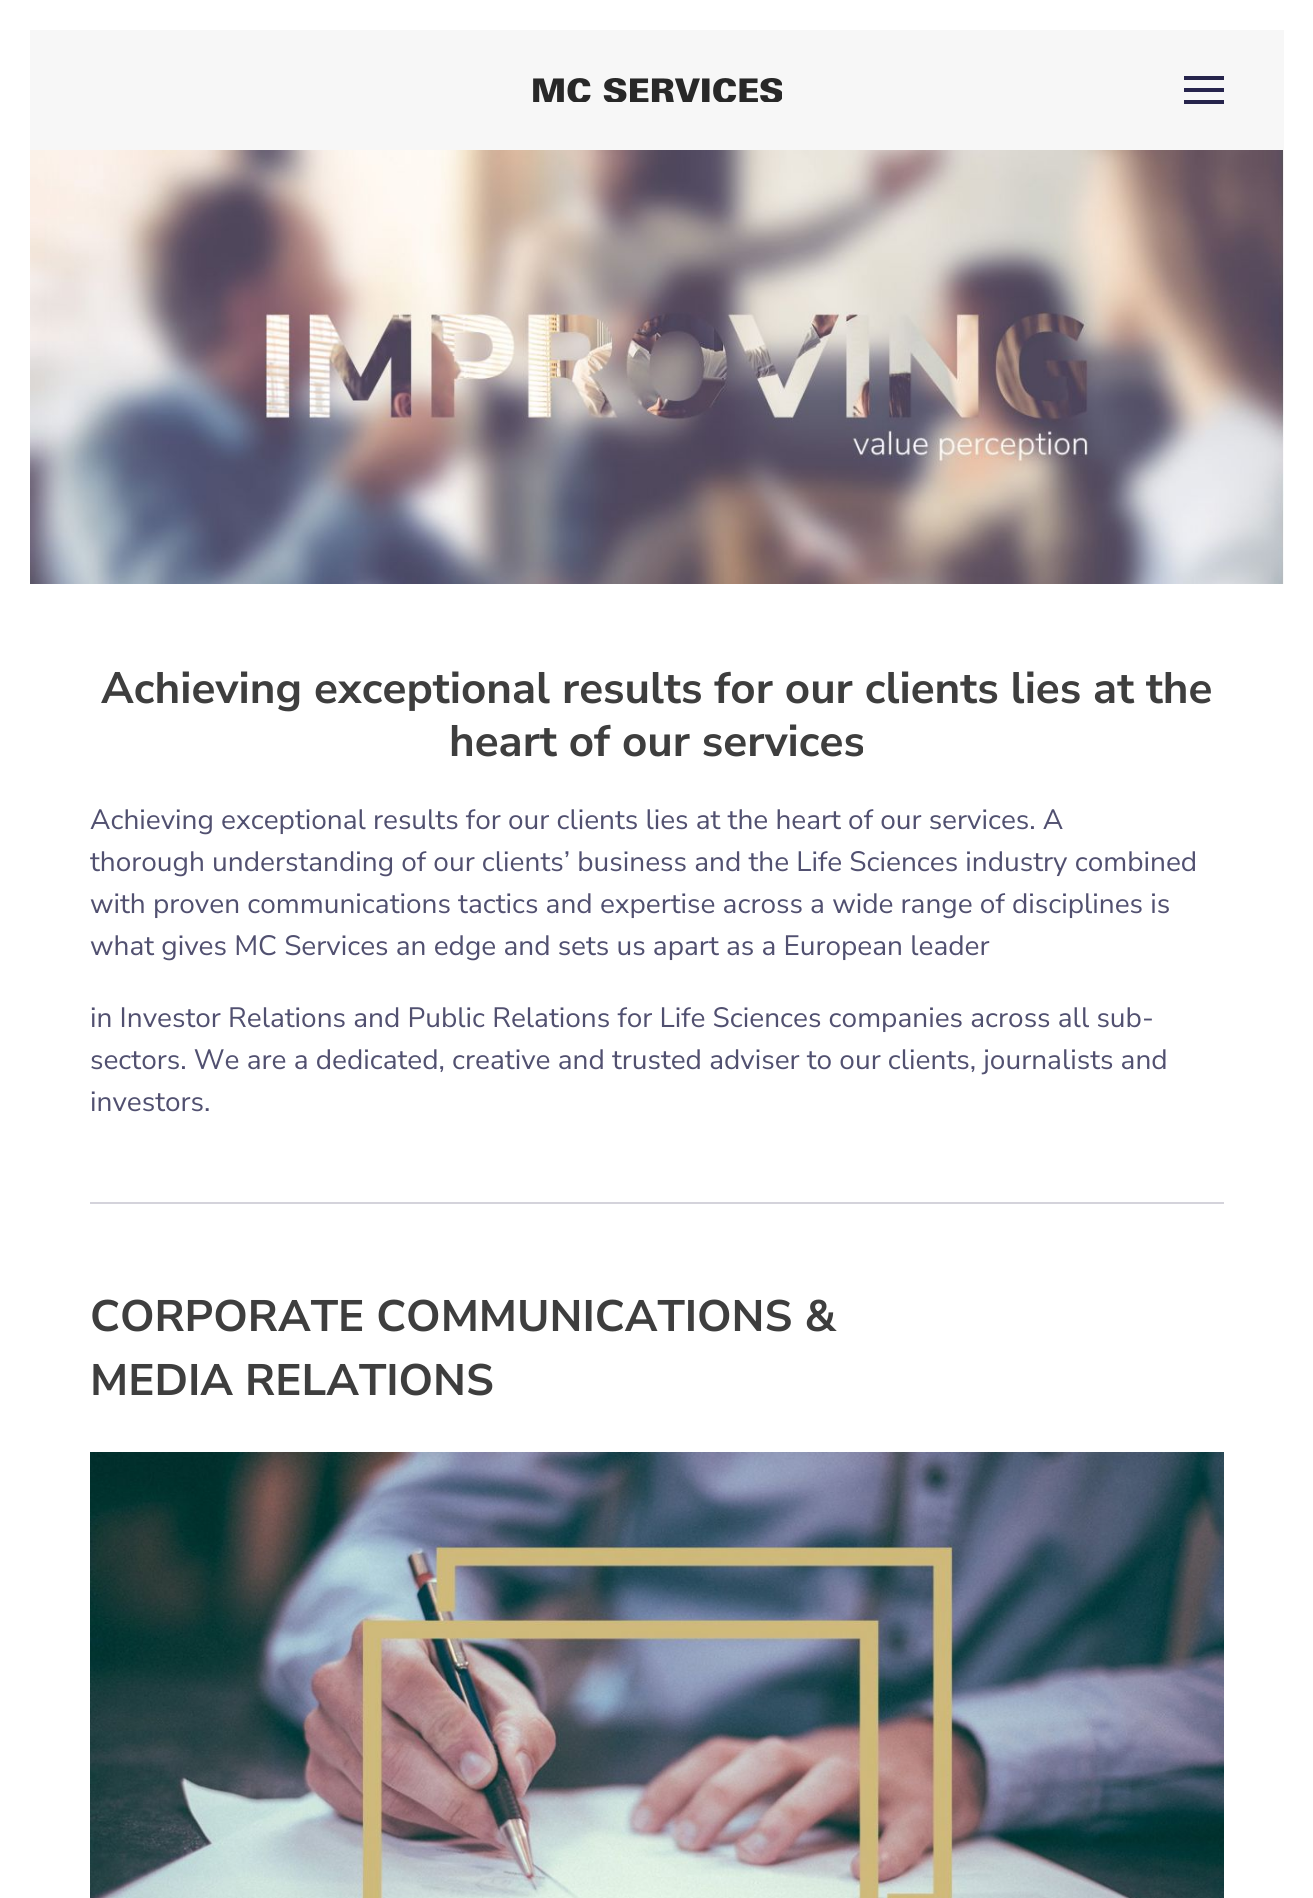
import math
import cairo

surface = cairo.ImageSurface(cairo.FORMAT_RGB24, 1313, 1898)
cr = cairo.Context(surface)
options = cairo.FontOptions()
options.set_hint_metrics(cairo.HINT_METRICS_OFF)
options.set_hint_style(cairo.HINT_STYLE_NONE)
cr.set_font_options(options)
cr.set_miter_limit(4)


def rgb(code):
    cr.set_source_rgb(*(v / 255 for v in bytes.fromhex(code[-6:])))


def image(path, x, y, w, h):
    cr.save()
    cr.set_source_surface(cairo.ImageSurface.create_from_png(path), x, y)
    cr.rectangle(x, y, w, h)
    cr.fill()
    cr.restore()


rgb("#ffffff")
cr.paint()
rgb("#f7f7f7")
cr.rectangle(30, 30, 1254, 120)
cr.fill()
image("img/1.png", 533, 78, 249, 24)
for x, y, w, h, color in [
    (1184, 76, 40, 4, "#26244c"),
    (1184, 88, 40, 4, "#26244c"),
    (1184, 100, 40, 4, "#26244c"),
]:
    rgb(color)
    cr.rectangle(x, y, w, h)
    cr.fill()
image("img/2.png", 30, 150, 1254, 434)
rgb("#d4d3db")
cr.rectangle(90, 1202, 1134, 2)
cr.fill()
image("img/3.png", 90, 1452, 1134, 446)
cr.select_font_face("Nunito Sans ExtraLight")
cr.set_font_size(44)
rgb("#3e3e3e")
cr.move_to(101, 703)
cr.show_text("Achieving exceptional results for our clients lies at the")
cr.move_to(449, 756)
cr.show_text("heart of our services")
cr.select_font_face("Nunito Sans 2 ExtraLight")
cr.set_font_size(28)
rgb("#515070")
for x, y, s in [
    (90, 829, "Achieving exceptional results for our clients lies at the heart of our services. A"),
    (90, 871, "thorough understanding of our clients’ business and the Life Sciences industry combined"),
    (90, 913, "with proven communications tactics and expertise across a wide range of disciplines is"),
    (90, 955, "what gives MC Services an edge and sets us apart as a European leader"),
    (90, 1027, "in Investor Relations and Public Relations for Life Sciences companies across all sub-"),
    (90, 1069, "sectors. We are a dedicated, creative and trusted adviser to our clients, journalists and"),
    (90, 1111, "investors."),
]:
    cr.move_to(x, y)
    cr.show_text(s)
cr.select_font_face("Nunito Sans ExtraLight")
cr.set_font_size(44)
rgb("#3e3e3e")
cr.move_to(90, 1331)
cr.show_text("CORPORATE COMMUNICATIONS &")
cr.move_to(90, 1395)
cr.show_text("MEDIA RELATIONS")
surface.write_to_png("page.png")
